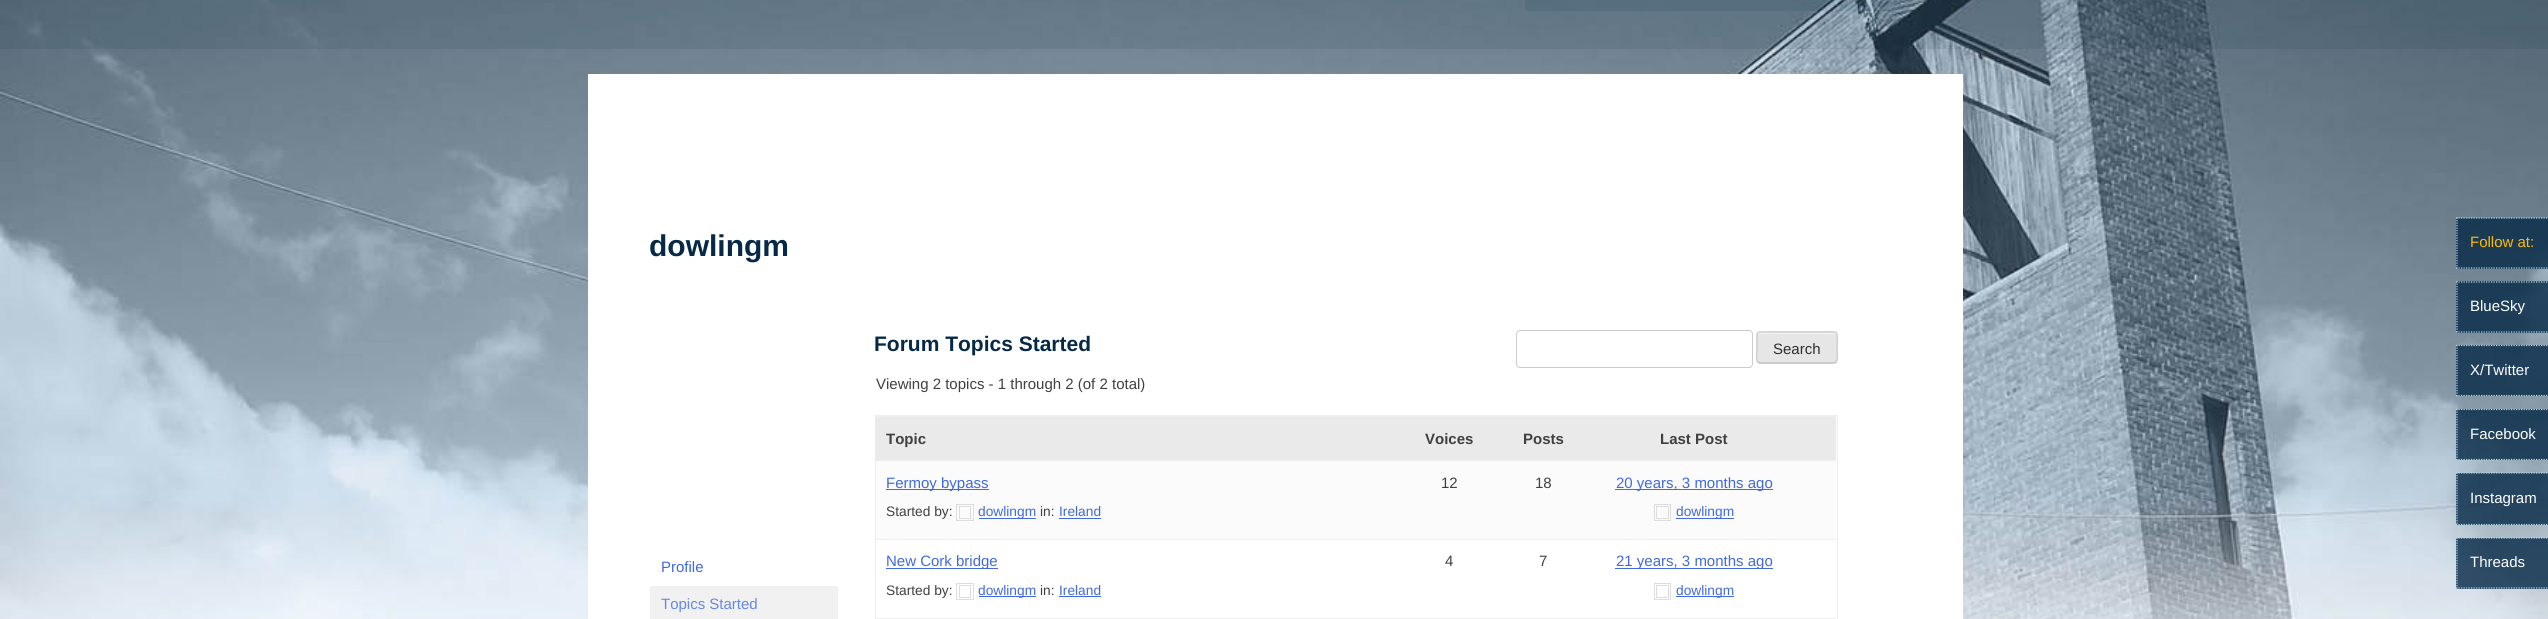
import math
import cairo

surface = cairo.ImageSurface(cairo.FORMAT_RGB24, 2548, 619)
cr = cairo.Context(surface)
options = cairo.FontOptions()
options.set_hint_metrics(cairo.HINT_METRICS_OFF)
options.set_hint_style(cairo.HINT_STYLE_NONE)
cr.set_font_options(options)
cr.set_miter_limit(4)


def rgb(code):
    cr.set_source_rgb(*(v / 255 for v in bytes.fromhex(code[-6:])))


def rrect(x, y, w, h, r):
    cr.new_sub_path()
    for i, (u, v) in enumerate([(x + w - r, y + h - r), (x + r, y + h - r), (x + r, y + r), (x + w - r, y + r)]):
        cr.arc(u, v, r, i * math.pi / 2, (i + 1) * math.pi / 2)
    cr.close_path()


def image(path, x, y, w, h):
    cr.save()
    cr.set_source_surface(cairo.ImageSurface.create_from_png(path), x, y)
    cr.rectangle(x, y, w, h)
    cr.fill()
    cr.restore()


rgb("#ffffff")
cr.paint()
image("img/1.png", 0, 0, 2548, 619)
cr.set_source_rgba(0.024, 0.161, 0.278, 0.1)
cr.rectangle(0, 0, 2548, 49)
cr.fill()
rrect(1525, -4, 375, 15, 4)
cr.fill()
rgb("#ffffff")
cr.rectangle(588, 74, 1375, 545)
cr.fill()
rgb("#f1f1f1")
cr.rectangle(650, 586, 188, 33)
cr.fill()
rrect(1516.5, 330.5, 236, 37, 3.5)
rgb("#cccccc")
cr.set_line_width(1)
cr.stroke()
rgb("#e6e6e6")
rrect(1756, 331, 82, 33, 4)
cr.fill()
rgb("#f3f3f3")
cr.new_path()
cr.move_to(1760, 334)
cr.line_to(1834, 334)
cr.curve_to(1835, 334, 1836, 335, 1836, 336)
cr.curve_to(1836, 334, 1835, 333, 1834, 333)
cr.line_to(1773, 333)
cr.curve_to(1772, 333, 1758, 330, 1758, 336)
cr.curve_to(1758, 335, 1759, 334, 1760, 334)
cr.close_path()
cr.fill()
cr.new_path()
cr.move_to(1836, 362)
cr.line_to(1834, 363)
cr.line_to(1759.5, 363)
cr.line_to(1758, 362)
rgb("#bbbbbb")
cr.set_line_width(1.2)
cr.stroke()
cr.new_path()
cr.move_to(1758, 362)
cr.curve_to(1755.5, 360, 1757, 350.5, 1757, 347.5)
cr.curve_to(1757, 329.5, 1754, 332, 1772.5, 332)
cr.line_to(1821.5, 332)
cr.curve_to(1840, 332, 1837, 329.5, 1837, 347.5)
cr.curve_to(1837, 350.5, 1838, 360, 1836, 362)
rgb("#cccccc")
cr.stroke()
cr.rectangle(875.5, 415.5, 962, 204)
rgb("#eeeeee")
cr.set_line_width(1)
cr.stroke()
for x, y, w, h, color in [
    (876, 417, 960, 43, "#eaeaea"),
    (876, 416, 960, 1, "#eeeeee"),
    (876, 461, 960, 78, "#fbfbfb"),
    (876, 460, 960, 1, "#eeeeee"),
    (886, 489, 103, 1, "#4169e1"),
]:
    rgb(color)
    cr.rectangle(x, y, w, h)
    cr.fill()
cr.rectangle(956.5, 504.5, 17, 16)
rgb("#dddddd")
cr.stroke()
cr.rectangle(959.5, 506.5, 11, 12)
cr.stroke()
for x, y, w, h, color in [
    (979, 518, 57, 1, "#4169e1"),
    (1059, 518, 42, 1, "#4169e1"),
    (1615, 489, 158, 1, "#4169e1"),
]:
    rgb(color)
    cr.rectangle(x, y, w, h)
    cr.fill()
cr.rectangle(1654.5, 504.5, 16, 16)
rgb("#dddddd")
cr.stroke()
cr.rectangle(1656.5, 506.5, 12, 12)
cr.stroke()
for x, y, w, h, color in [
    (1676, 518, 58, 1, "#4169e1"),
    (876, 539, 960, 1, "#eeeeee"),
    (886, 568, 112, 1, "#4169e1"),
]:
    rgb(color)
    cr.rectangle(x, y, w, h)
    cr.fill()
cr.rectangle(956.5, 583.5, 17, 16)
rgb("#dddddd")
cr.stroke()
cr.rectangle(959.5, 585.5, 11, 12)
cr.stroke()
for x, y, w, h, color in [
    (979, 596, 57, 1, "#4169e1"),
    (1059, 596, 42, 1, "#4169e1"),
    (1615, 568, 158, 1, "#4169e1"),
]:
    rgb(color)
    cr.rectangle(x, y, w, h)
    cr.fill()
cr.rectangle(1654.5, 583.5, 16, 16)
rgb("#dddddd")
cr.stroke()
cr.rectangle(1656.5, 585.5, 12, 12)
cr.stroke()
rgb("#4169e1")
cr.rectangle(1676, 596, 58, 1)
cr.fill()
rgb("#eeeeee")
cr.rectangle(876, 618, 960, 1)
cr.fill()
cr.set_source_rgba(0.024, 0.161, 0.278, 0.8)
cr.rectangle(2456, 218, 92, 51)
cr.fill()
cr.new_path()
cr.move_to(2456, 218)
cr.line_to(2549, 218)
rgb("#b0dbea")
cr.set_line_width(1.2)
cr.set_dash([1.25, 1.25])
cr.stroke()
cr.new_path()
cr.move_to(2456, 268)
cr.line_to(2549, 268)
cr.stroke()
cr.new_path()
cr.move_to(2457, 217.5)
cr.line_to(2457, 269)
cr.stroke()
cr.set_source_rgba(0.024, 0.161, 0.278, 0.8)
cr.rectangle(2456, 281, 92, 52)
cr.fill()
cr.new_path()
cr.move_to(2456, 282)
cr.line_to(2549, 282)
rgb("#b0dbea")
cr.stroke()
cr.new_path()
cr.move_to(2456, 332)
cr.line_to(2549, 332)
cr.stroke()
cr.new_path()
cr.move_to(2457, 281)
cr.line_to(2457, 332.5)
cr.stroke()
cr.set_source_rgba(0.024, 0.161, 0.278, 0.8)
cr.rectangle(2456, 345, 92, 51)
cr.fill()
cr.new_path()
cr.move_to(2456, 345.5)
cr.line_to(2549, 345.5)
rgb("#b0dbea")
cr.stroke()
cr.new_path()
cr.move_to(2456, 395.5)
cr.line_to(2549, 395.5)
cr.stroke()
cr.new_path()
cr.move_to(2457, 345)
cr.line_to(2457, 396)
cr.stroke()
cr.set_source_rgba(0.024, 0.161, 0.278, 0.8)
cr.rectangle(2456, 409, 92, 51)
cr.fill()
cr.new_path()
cr.move_to(2456, 409.5)
cr.line_to(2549, 409.5)
rgb("#b0dbea")
cr.stroke()
cr.new_path()
cr.move_to(2456, 459.5)
cr.line_to(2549, 459.5)
cr.stroke()
cr.new_path()
cr.move_to(2457, 409)
cr.line_to(2457, 460)
cr.stroke()
cr.set_source_rgba(0.024, 0.161, 0.278, 0.8)
cr.rectangle(2456, 473, 92, 52)
cr.fill()
cr.new_path()
cr.move_to(2456, 473)
cr.line_to(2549, 473)
rgb("#b0dbea")
cr.stroke()
cr.new_path()
cr.move_to(2456, 524.5)
cr.line_to(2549, 524.5)
cr.stroke()
cr.new_path()
cr.move_to(2457, 472.5)
cr.line_to(2457, 525)
cr.stroke()
cr.set_source_rgba(0.024, 0.161, 0.278, 0.8)
cr.rectangle(2456, 538, 92, 51)
cr.fill()
cr.new_path()
cr.move_to(2456, 538)
cr.line_to(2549, 538)
rgb("#b0dbea")
cr.stroke()
cr.new_path()
cr.move_to(2456, 588)
cr.line_to(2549, 588)
cr.stroke()
cr.new_path()
cr.move_to(2457, 537.5)
cr.line_to(2457, 589)
cr.stroke()
cr.select_font_face("Liberation Sans", cairo.FONT_SLANT_NORMAL, cairo.FONT_WEIGHT_BOLD)
cr.set_font_size(30)
rgb("#062947")
cr.move_to(649, 256)
cr.show_text("dowlingm")
cr.select_font_face("Liberation Sans")
cr.set_font_size(15)
rgb("#4169e1")
cr.move_to(661, 572)
cr.show_text("Profile")
rgb("#6787e7")
cr.move_to(661, 609)
cr.show_text("Topics Started")
cr.select_font_face("Liberation Sans", cairo.FONT_SLANT_NORMAL, cairo.FONT_WEIGHT_BOLD)
cr.set_font_size(21)
rgb("#062947")
cr.move_to(874, 351)
cr.show_text("Forum Topics Started")
cr.select_font_face("Liberation Sans")
cr.set_font_size(15)
rgb("#2e2e2e")
cr.move_to(1773, 354)
cr.show_text("Search")
rgb("#404040")
cr.move_to(876, 389)
cr.show_text("Viewing 2 topics - 1 through 2 (of 2 total)")
cr.save()
cr.rectangle(886, 428, 940, 22)
cr.clip()
cr.select_font_face("Liberation Sans", cairo.FONT_SLANT_NORMAL, cairo.FONT_WEIGHT_BOLD)
cr.move_to(886, 444)
cr.show_text("Topic")
cr.restore()
cr.select_font_face("Liberation Sans", cairo.FONT_SLANT_NORMAL, cairo.FONT_WEIGHT_BOLD)
for x, y, s in [
    (1425, 444, "Voices"),
    (1523, 444, "Posts"),
    (1660, 444, "Last Post"),
]:
    cr.move_to(x, y)
    cr.show_text(s)
cr.select_font_face("Liberation Sans")
rgb("#4169e1")
cr.move_to(886, 488)
cr.show_text("Fermoy bypass")
cr.set_font_size(13.75)
rgb("#404040")
cr.move_to(886, 516)
cr.show_text("Started by:")
rgb("#4169e1")
cr.move_to(978, 516)
cr.show_text("dowlingm")
rgb("#404040")
cr.move_to(1040, 516)
cr.show_text("in:")
rgb("#4169e1")
cr.move_to(1059, 516)
cr.show_text("Ireland")
cr.set_font_size(15)
rgb("#404040")
cr.move_to(1441, 488)
cr.show_text("12")
cr.move_to(1535, 488)
cr.show_text("18")
rgb("#4169e1")
cr.move_to(1616, 488)
cr.show_text("20 years, 3 months ago")
cr.set_font_size(13.75)
cr.move_to(1676, 516)
cr.show_text("dowlingm")
cr.set_font_size(15)
cr.move_to(886, 566)
cr.show_text("New Cork bridge")
cr.set_font_size(13.75)
rgb("#404040")
cr.move_to(886, 595)
cr.show_text("Started by:")
rgb("#4169e1")
cr.move_to(978, 595)
cr.show_text("dowlingm")
rgb("#404040")
cr.move_to(1040, 595)
cr.show_text("in:")
rgb("#4169e1")
cr.move_to(1059, 595)
cr.show_text("Ireland")
cr.set_font_size(15)
rgb("#404040")
cr.move_to(1445, 566)
cr.show_text("4")
cr.move_to(1539, 566)
cr.show_text("7")
rgb("#4169e1")
cr.move_to(1616, 566)
cr.show_text("21 years, 3 months ago")
cr.set_font_size(13.75)
cr.move_to(1676, 595)
cr.show_text("dowlingm")
cr.set_font_size(15)
rgb("#ffba00")
cr.move_to(2470, 247)
cr.show_text("Follow at:")
rgb("#ffffff")
for x, y, s in [
    (2470, 311, "BlueSky"),
    (2470, 375, "X/Twitter"),
    (2470, 439, "Facebook"),
    (2470, 503, "Instagram"),
    (2470, 567, "Threads"),
]:
    cr.move_to(x, y)
    cr.show_text(s)
surface.write_to_png("page.png")
